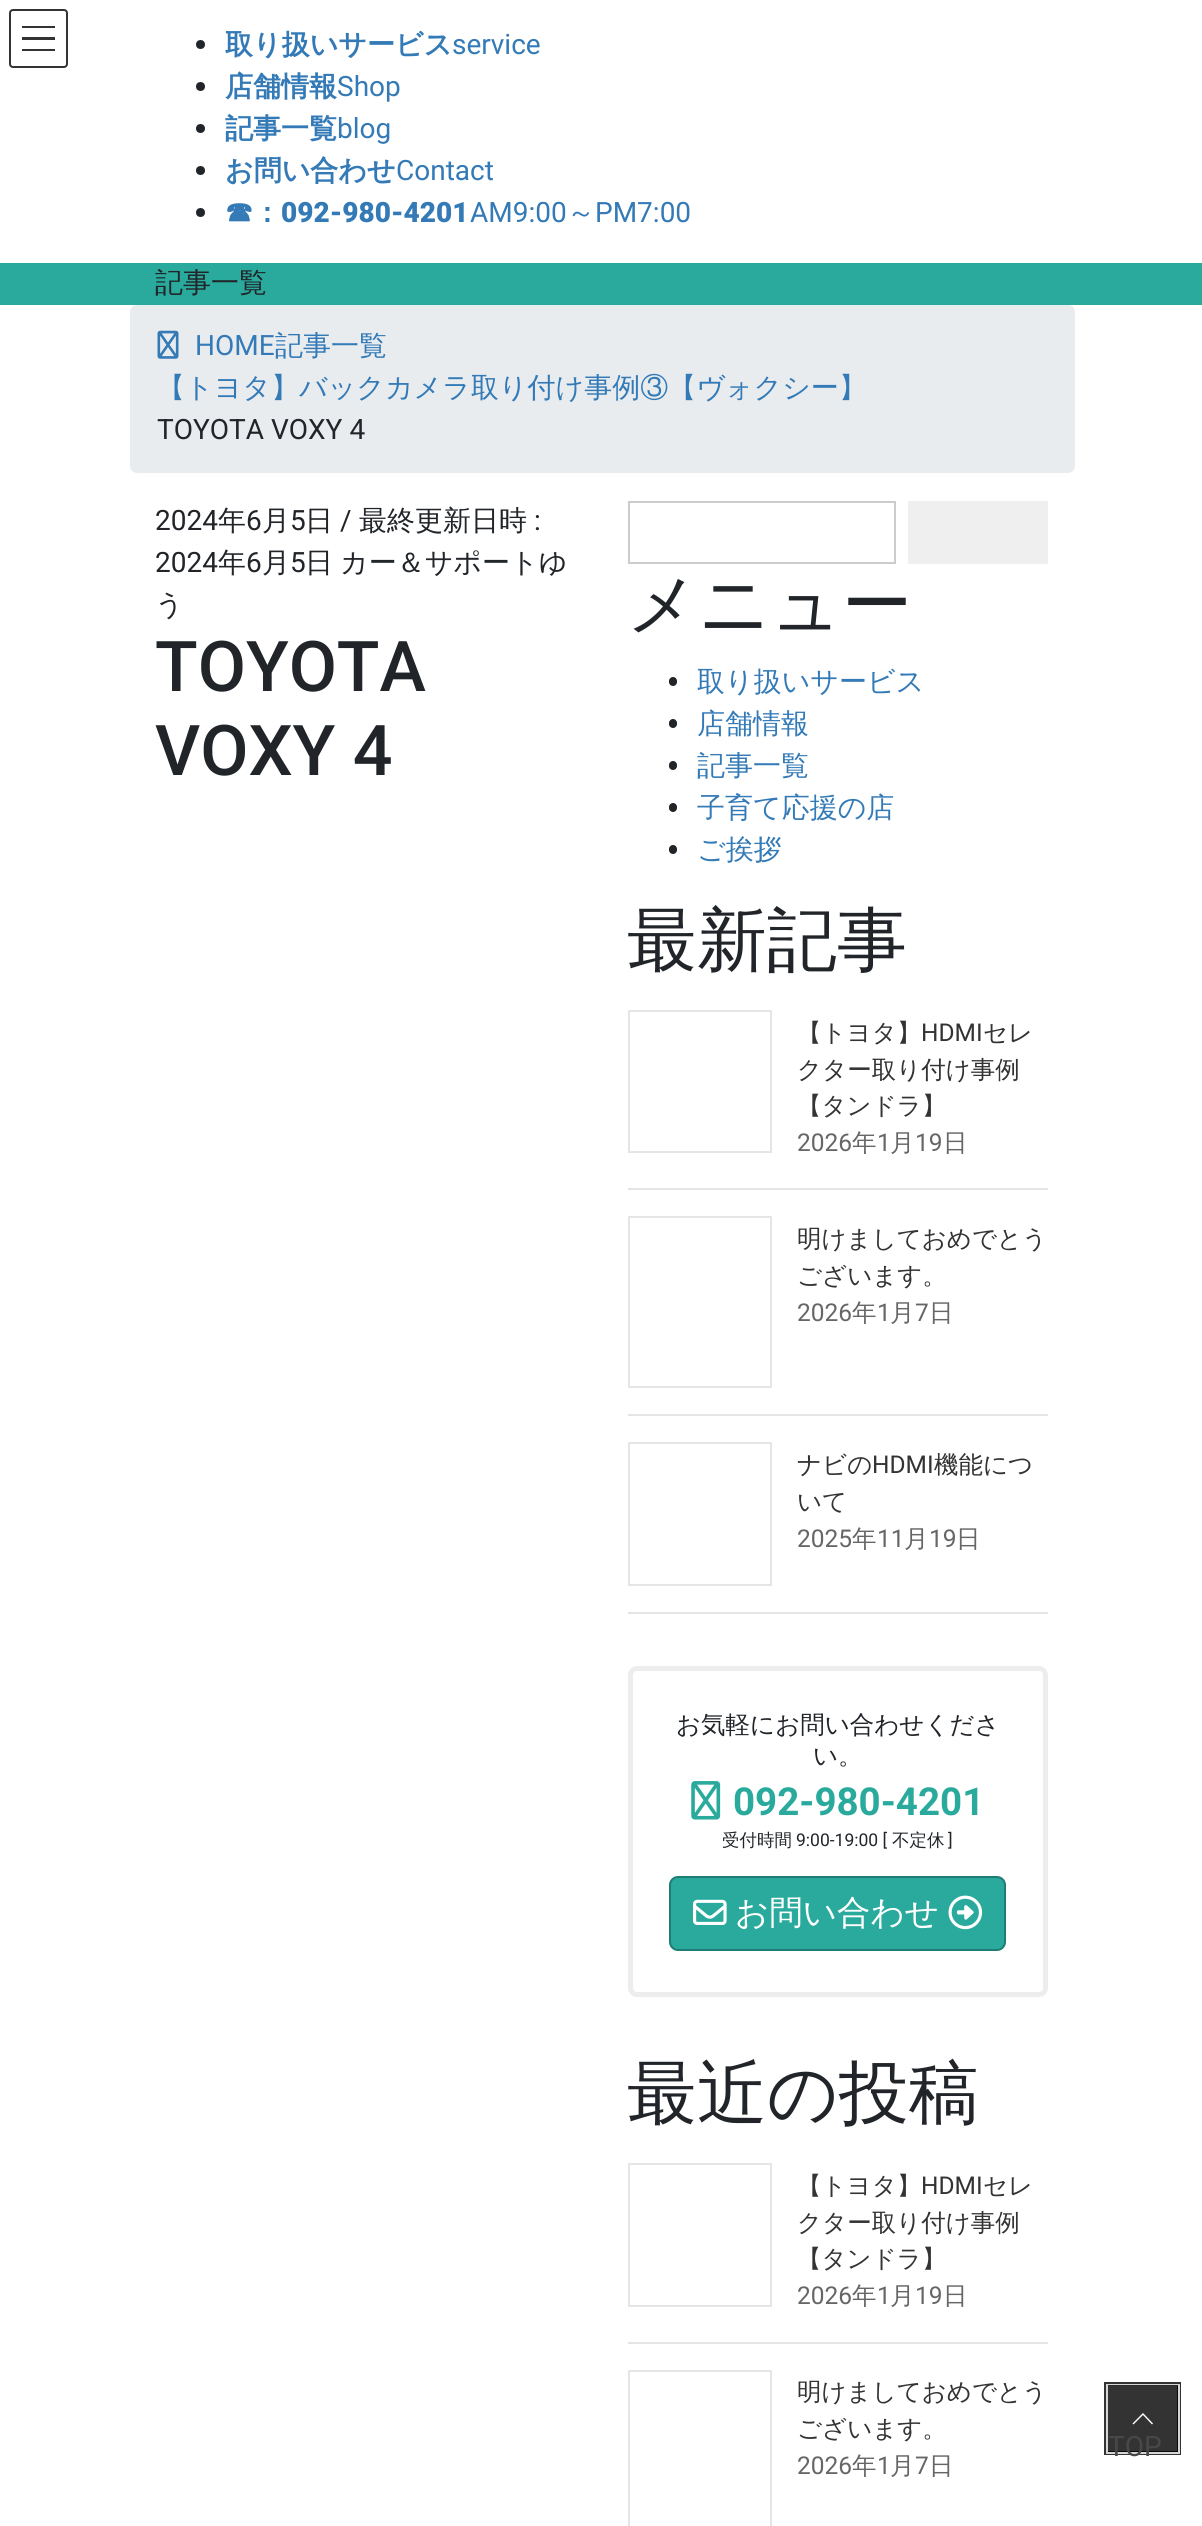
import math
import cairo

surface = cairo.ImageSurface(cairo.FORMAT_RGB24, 1202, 2526)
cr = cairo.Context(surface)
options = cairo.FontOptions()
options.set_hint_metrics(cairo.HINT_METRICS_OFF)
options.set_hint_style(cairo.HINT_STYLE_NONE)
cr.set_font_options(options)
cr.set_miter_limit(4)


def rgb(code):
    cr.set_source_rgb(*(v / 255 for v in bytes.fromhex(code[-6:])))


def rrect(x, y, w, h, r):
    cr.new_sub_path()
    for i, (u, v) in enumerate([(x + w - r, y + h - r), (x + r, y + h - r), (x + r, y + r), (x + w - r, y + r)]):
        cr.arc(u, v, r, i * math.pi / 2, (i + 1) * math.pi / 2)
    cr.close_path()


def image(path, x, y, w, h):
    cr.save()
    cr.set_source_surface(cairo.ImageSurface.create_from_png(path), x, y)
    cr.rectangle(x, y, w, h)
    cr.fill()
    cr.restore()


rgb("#ffffff")
cr.paint()
for x, y, w, h, color in [
    (22, 26, 33, 2, "#333333"),
    (22, 37, 33, 3, "#333333"),
    (22, 49, 33, 2, "#333333"),
]:
    rgb(color)
    cr.rectangle(x, y, w, h)
    cr.fill()
rrect(10, 10, 57, 57, 3)
cr.stroke()
rgb("#212529")
cr.arc(200.5, 44.5, 4.5, 0, 2 * math.pi)
cr.fill()
cr.arc(200.5, 86.5, 4.5, 0, 2 * math.pi)
cr.fill()
cr.arc(200.5, 128.5, 4.5, 0, 2 * math.pi)
cr.fill()
cr.arc(200.5, 170.5, 4.5, 0, 2 * math.pi)
cr.fill()
cr.arc(200.5, 212.5, 4.5, 0, 2 * math.pi)
cr.fill()
rgb("#29aa9c")
cr.rectangle(0, 263, 1202, 42)
cr.fill()
rgb("#e9ecef")
rrect(130, 305, 945, 168, 7)
cr.fill()
image("img/1.png", 157, 330, 22, 29)
cr.rectangle(629, 502, 266, 61)
rgb("#cccccc")
cr.stroke()
rgb("#efefef")
cr.rectangle(908, 501, 140, 63)
cr.fill()
rgb("#212529")
rrect(669, 677, 8, 9, 4)
cr.fill()
rrect(669, 719, 8, 9, 4)
cr.fill()
rrect(669, 761, 8, 9, 4)
cr.fill()
rrect(669, 803, 8, 9, 4)
cr.fill()
rrect(669, 845, 8, 9, 4)
cr.fill()
rgb("#e5e5e5")
cr.rectangle(628, 1188, 420, 2)
cr.fill()
cr.rectangle(629, 1011, 142, 141)
cr.stroke()
cr.rectangle(628, 1414, 420, 2)
cr.fill()
cr.rectangle(629, 1217, 142, 170)
cr.stroke()
cr.rectangle(628, 1612, 420, 2)
cr.fill()
cr.rectangle(629, 1443, 142, 142)
cr.stroke()
rrect(630.5, 1668.5, 415, 326, 6.5)
rgb("#ededed")
cr.set_line_width(5)
cr.stroke()
cr.set_source_rgba(1, 1, 1, 0.8)
cr.set_fill_rule(cairo.FILL_RULE_EVEN_ODD)
cr.new_path()
cr.move_to(638, 1671)
cr.curve_to(636, 1671, 634, 1673, 634, 1675)
cr.line_to(634, 1988)
cr.curve_to(634, 1990, 636, 1992, 638, 1992)
cr.line_to(1039, 1992)
cr.curve_to(1041, 1992, 1043, 1990, 1043, 1988)
cr.line_to(1043, 1675)
cr.curve_to(1043, 1673, 1041, 1671, 1039, 1671)
cr.close_path()
cr.move_to(636, 1673)
cr.line_to(636, 1990)
cr.line_to(1041, 1990)
cr.line_to(1041, 1673)
cr.close_path()
cr.fill()
image("img/2.png", 691, 1781, 30, 39)
rgb("#29aa9c")
rrect(670, 1877, 335, 73, 8)
cr.fill_preserve()
rgb("#1e7d74")
cr.set_line_width(2)
cr.stroke()
image("img/3.png", 693, 1899, 34, 26)
image("img/4.png", 948, 1895, 35, 35)
rgb("#e5e5e5")
cr.rectangle(628, 2342, 420, 2)
cr.fill()
cr.rectangle(629, 2164, 142, 142)
cr.stroke()
cr.rectangle(629, 2371, 142, 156)
cr.stroke()
cr.rectangle(1106, 2384, 73, 69)
rgb("#333333")
cr.set_line_width(4)
cr.stroke()
cr.rectangle(1107, 2385, 72, 68)
rgb("#d6d6d6")
cr.set_line_width(2)
cr.stroke()
cr.set_source_rgba(0, 0, 0, 0.8)
cr.rectangle(1108, 2385, 70, 67)
cr.fill()
rgb("#ffffff")
cr.set_fill_rule(cairo.FILL_RULE_WINDING)
cr.new_path()
cr.move_to(1153, 2423.5)
cr.line_to(1152, 2424.5)
cr.line_to(1143, 2415)
cr.line_to(1133.5, 2424.5)
cr.line_to(1132.5, 2423.5)
cr.line_to(1143, 2413)
cr.close_path()
cr.fill()
cr.select_font_face("WenQuanYi Zen Hei", cairo.FONT_SLANT_NORMAL, cairo.FONT_WEIGHT_BOLD)
cr.set_font_size(28)
rgb("#337ab7")
cr.move_to(225, 54)
cr.show_text("取り扱いサービス")
cr.select_font_face("Roboto")
cr.move_to(452, 54)
cr.show_text("service")
cr.select_font_face("WenQuanYi Zen Hei", cairo.FONT_SLANT_NORMAL, cairo.FONT_WEIGHT_BOLD)
cr.move_to(225, 96)
cr.show_text("店舗情報")
cr.select_font_face("Roboto")
cr.move_to(337, 96)
cr.show_text("Shop")
cr.select_font_face("WenQuanYi Zen Hei", cairo.FONT_SLANT_NORMAL, cairo.FONT_WEIGHT_BOLD)
cr.move_to(225, 138)
cr.show_text("記事一覧")
cr.select_font_face("Roboto")
cr.move_to(337, 138)
cr.show_text("blog")
cr.select_font_face("WenQuanYi Zen Hei", cairo.FONT_SLANT_NORMAL, cairo.FONT_WEIGHT_BOLD)
cr.move_to(225, 180)
cr.show_text("お問い合わせ")
cr.select_font_face("Roboto")
cr.move_to(396, 180)
cr.show_text("Contact")
cr.select_font_face("WenQuanYi Zen Hei", cairo.FONT_SLANT_NORMAL, cairo.FONT_WEIGHT_BOLD)
cr.move_to(225, 222)
cr.show_text("☎：")
cr.select_font_face("Roboto Black")
cr.move_to(281, 222)
cr.show_text("092-980-4201")
cr.select_font_face("Roboto")
cr.move_to(470, 222)
cr.show_text("AM9:00")
cr.select_font_face("WenQuanYi Zen Hei Medium")
cr.move_to(567, 222)
cr.show_text("～")
cr.select_font_face("Roboto")
cr.move_to(595, 222)
cr.show_text("PM7:00")
cr.select_font_face("WenQuanYi Zen Hei Medium")
rgb("#212529")
cr.move_to(155, 292)
cr.show_text("記事一覧")
cr.select_font_face("Roboto")
rgb("#337ab7")
cr.move_to(195, 355)
cr.show_text("HOME")
cr.select_font_face("WenQuanYi Zen Hei Medium")
cr.move_to(275, 355)
cr.show_text("記事一覧")
cr.move_to(157, 397)
cr.show_text("【トヨタ】バックカメラ取り付け事例③【ヴォクシー】")
cr.select_font_face("Roboto")
rgb("#212529")
cr.move_to(157, 439)
cr.show_text("TOYOTA VOXY 4")
cr.move_to(155, 530)
cr.show_text("2024")
cr.select_font_face("WenQuanYi Zen Hei Medium")
cr.move_to(218, 530)
cr.show_text("年")
cr.select_font_face("Roboto")
cr.move_to(246, 530)
cr.show_text("6")
cr.select_font_face("WenQuanYi Zen Hei Medium")
cr.move_to(262, 530)
cr.show_text("月")
cr.select_font_face("Roboto")
cr.move_to(290, 530)
cr.show_text("5")
cr.select_font_face("WenQuanYi Zen Hei Medium")
cr.move_to(305, 530)
cr.show_text("日")
cr.select_font_face("Roboto")
cr.move_to(340, 530)
cr.show_text("/")
cr.select_font_face("WenQuanYi Zen Hei Medium")
cr.move_to(359, 530)
cr.show_text("最終更新日時")
cr.select_font_face("Roboto")
cr.move_to(534, 530)
cr.show_text(":")
cr.move_to(155, 572)
cr.show_text("2024")
cr.select_font_face("WenQuanYi Zen Hei Medium")
cr.move_to(218, 572)
cr.show_text("年")
cr.select_font_face("Roboto")
cr.move_to(246, 572)
cr.show_text("6")
cr.select_font_face("WenQuanYi Zen Hei Medium")
cr.move_to(262, 572)
cr.show_text("月")
cr.select_font_face("Roboto")
cr.move_to(290, 572)
cr.show_text("5")
cr.select_font_face("WenQuanYi Zen Hei Medium")
for x, y, s in [
    (305, 572, "日"),
    (340, 572, "カー＆サポートゆ"),
    (155, 614, "う"),
]:
    cr.move_to(x, y)
    cr.show_text(s)
cr.select_font_face("Roboto Medium")
cr.set_font_size(70)
cr.move_to(155, 691)
cr.show_text("TOYOTA")
cr.move_to(155, 775)
cr.show_text("VOXY 4")
cr.select_font_face("WenQuanYi Zen Hei Medium")
cr.move_to(627, 628)
cr.show_text("メニュー")
cr.set_font_size(28)
rgb("#337ab7")
for x, y, s in [
    (697, 691, "取り扱いサービス"),
    (697, 733, "店舗情報"),
    (697, 775, "記事一覧"),
    (697, 817, "子育て応援の店"),
    (697, 859, "ご挨拶"),
]:
    cr.move_to(x, y)
    cr.show_text(s)
cr.set_font_size(70)
rgb("#212529")
cr.move_to(627, 964)
cr.show_text("最新記事")
cr.set_font_size(24.5)
rgb("#333333")
cr.move_to(797, 1041)
cr.show_text("【トヨタ】")
cr.select_font_face("Roboto")
cr.move_to(921, 1041)
cr.show_text("HDMI")
cr.select_font_face("WenQuanYi Zen Hei Medium")
for x, y, s in [
    (983, 1041, "セレ"),
    (797, 1078, "クター取り付け事例"),
    (797, 1114, "【タンドラ】"),
]:
    cr.move_to(x, y)
    cr.show_text(s)
cr.select_font_face("Roboto")
rgb("#666666")
cr.move_to(797, 1151)
cr.show_text("2026")
cr.select_font_face("WenQuanYi Zen Hei Medium")
cr.move_to(852, 1151)
cr.show_text("年")
cr.select_font_face("Roboto")
cr.move_to(877, 1151)
cr.show_text("1")
cr.select_font_face("WenQuanYi Zen Hei Medium")
cr.move_to(890, 1151)
cr.show_text("月")
cr.select_font_face("Roboto")
cr.move_to(915, 1151)
cr.show_text("19")
cr.select_font_face("WenQuanYi Zen Hei Medium")
cr.move_to(943, 1151)
cr.show_text("日")
rgb("#333333")
cr.move_to(797, 1247)
cr.show_text("明けましておめでとう")
cr.move_to(797, 1284)
cr.show_text("ございます。")
cr.select_font_face("Roboto")
rgb("#666666")
cr.move_to(797, 1321)
cr.show_text("2026")
cr.select_font_face("WenQuanYi Zen Hei Medium")
cr.move_to(852, 1321)
cr.show_text("年")
cr.select_font_face("Roboto")
cr.move_to(877, 1321)
cr.show_text("1")
cr.select_font_face("WenQuanYi Zen Hei Medium")
cr.move_to(890, 1321)
cr.show_text("月")
cr.select_font_face("Roboto")
cr.move_to(915, 1321)
cr.show_text("7")
cr.select_font_face("WenQuanYi Zen Hei Medium")
cr.move_to(929, 1321)
cr.show_text("日")
rgb("#333333")
cr.move_to(797, 1473)
cr.show_text("ナビの")
cr.select_font_face("Roboto")
cr.move_to(872, 1473)
cr.show_text("HDMI")
cr.select_font_face("WenQuanYi Zen Hei Medium")
cr.move_to(934, 1473)
cr.show_text("機能につ")
cr.move_to(797, 1510)
cr.show_text("いて")
cr.select_font_face("Roboto")
rgb("#666666")
cr.move_to(797, 1547)
cr.show_text("2025")
cr.select_font_face("WenQuanYi Zen Hei Medium")
cr.move_to(852, 1547)
cr.show_text("年")
cr.select_font_face("Roboto")
cr.move_to(877, 1547)
cr.show_text("11")
cr.select_font_face("WenQuanYi Zen Hei Medium")
cr.move_to(904, 1547)
cr.show_text("月")
cr.select_font_face("Roboto")
cr.move_to(929, 1547)
cr.show_text("19")
cr.select_font_face("WenQuanYi Zen Hei Medium")
cr.move_to(956, 1547)
cr.show_text("日")
rgb("#212529")
cr.move_to(676, 1733)
cr.show_text("お気軽にお問い合わせくださ")
cr.move_to(813, 1764)
cr.show_text("い。")
cr.select_font_face("Roboto", cairo.FONT_SLANT_NORMAL, cairo.FONT_WEIGHT_BOLD)
cr.set_font_size(38.5)
rgb("#29aa9c")
cr.move_to(733, 1815)
cr.show_text("092-980-4201")
cr.select_font_face("WenQuanYi Zen Hei Medium")
cr.set_font_size(17.5)
rgb("#212529")
cr.move_to(722, 1846)
cr.show_text("受付時間")
cr.select_font_face("Roboto")
cr.move_to(796, 1846)
cr.show_text("9:00-19:00 [")
cr.select_font_face("WenQuanYi Zen Hei Medium")
cr.move_to(892, 1846)
cr.show_text("不定休")
cr.select_font_face("Roboto")
cr.move_to(948, 1846)
cr.show_text("]")
cr.select_font_face("WenQuanYi Zen Hei Medium")
cr.set_font_size(33.5)
rgb("#ffffff")
cr.move_to(735, 1924)
cr.show_text("お問い合わせ")
cr.set_font_size(70)
rgb("#212529")
cr.move_to(627, 2117)
cr.show_text("最近の投稿")
cr.set_font_size(24.5)
rgb("#333333")
cr.move_to(797, 2194)
cr.show_text("【トヨタ】")
cr.select_font_face("Roboto")
cr.move_to(921, 2194)
cr.show_text("HDMI")
cr.select_font_face("WenQuanYi Zen Hei Medium")
for x, y, s in [
    (983, 2194, "セレ"),
    (797, 2231, "クター取り付け事例"),
    (797, 2267, "【タンドラ】"),
]:
    cr.move_to(x, y)
    cr.show_text(s)
cr.select_font_face("Roboto")
rgb("#666666")
cr.move_to(797, 2304)
cr.show_text("2026")
cr.select_font_face("WenQuanYi Zen Hei Medium")
cr.move_to(852, 2304)
cr.show_text("年")
cr.select_font_face("Roboto")
cr.move_to(877, 2304)
cr.show_text("1")
cr.select_font_face("WenQuanYi Zen Hei Medium")
cr.move_to(890, 2304)
cr.show_text("月")
cr.select_font_face("Roboto")
cr.move_to(915, 2304)
cr.show_text("19")
cr.select_font_face("WenQuanYi Zen Hei Medium")
cr.move_to(943, 2304)
cr.show_text("日")
rgb("#333333")
cr.move_to(797, 2400)
cr.show_text("明けましておめでとう")
cr.move_to(797, 2437)
cr.show_text("ございます。")
cr.select_font_face("Roboto")
rgb("#666666")
cr.move_to(797, 2474)
cr.show_text("2026")
cr.select_font_face("WenQuanYi Zen Hei Medium")
cr.move_to(852, 2474)
cr.show_text("年")
cr.select_font_face("Roboto")
cr.move_to(877, 2474)
cr.show_text("1")
cr.select_font_face("WenQuanYi Zen Hei Medium")
cr.move_to(890, 2474)
cr.show_text("月")
cr.select_font_face("Roboto")
cr.move_to(915, 2474)
cr.show_text("7")
cr.select_font_face("WenQuanYi Zen Hei Medium")
cr.move_to(929, 2474)
cr.show_text("日")
cr.select_font_face("Roboto")
cr.set_font_size(28)
rgb("#484848")
cr.move_to(1108, 2456)
cr.show_text("TOP")
surface.write_to_png("page.png")
